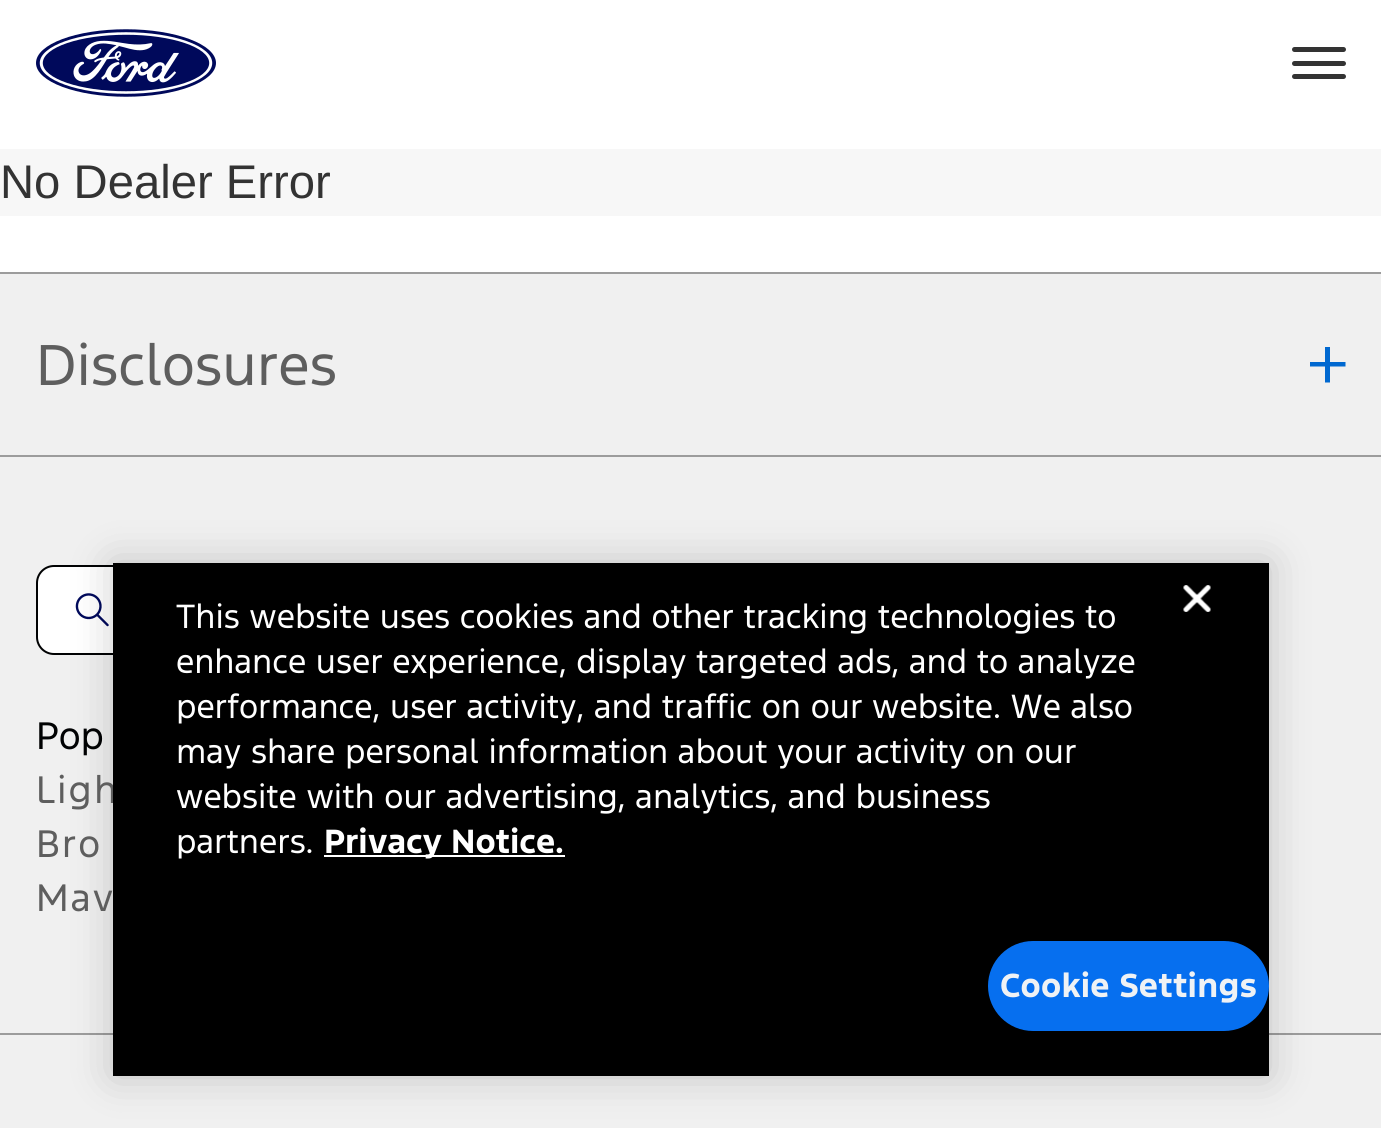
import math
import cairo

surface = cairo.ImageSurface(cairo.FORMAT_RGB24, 1381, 1128)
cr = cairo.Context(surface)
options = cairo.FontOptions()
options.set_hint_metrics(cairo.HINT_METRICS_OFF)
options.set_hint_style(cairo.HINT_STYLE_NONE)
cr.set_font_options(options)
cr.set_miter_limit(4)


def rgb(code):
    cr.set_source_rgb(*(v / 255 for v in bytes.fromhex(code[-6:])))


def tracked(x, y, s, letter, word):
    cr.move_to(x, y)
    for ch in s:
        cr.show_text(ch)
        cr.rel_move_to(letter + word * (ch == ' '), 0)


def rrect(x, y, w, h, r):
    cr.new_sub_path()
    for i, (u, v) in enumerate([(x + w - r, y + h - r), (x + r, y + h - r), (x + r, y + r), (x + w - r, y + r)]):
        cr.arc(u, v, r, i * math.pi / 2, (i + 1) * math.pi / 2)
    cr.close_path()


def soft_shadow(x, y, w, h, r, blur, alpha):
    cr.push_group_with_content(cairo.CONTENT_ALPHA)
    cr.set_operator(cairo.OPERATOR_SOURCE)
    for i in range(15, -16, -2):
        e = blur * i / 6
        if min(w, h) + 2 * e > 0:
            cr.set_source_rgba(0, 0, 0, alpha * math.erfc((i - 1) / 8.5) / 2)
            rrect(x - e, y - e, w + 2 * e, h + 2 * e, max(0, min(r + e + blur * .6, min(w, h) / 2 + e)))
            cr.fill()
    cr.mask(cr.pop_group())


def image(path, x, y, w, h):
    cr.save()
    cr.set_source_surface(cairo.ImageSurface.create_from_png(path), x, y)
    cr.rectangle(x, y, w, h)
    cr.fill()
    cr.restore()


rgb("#ffffff")
cr.paint()
image("img/1.png", 36, 29, 180, 68)
rgb("#333333")
rrect(1292, 61, 54, 5, 2.5)
cr.fill()
rrect(1292, 47, 54, 5, 2.5)
cr.fill()
rrect(1292, 74, 54, 5, 2.5)
cr.fill()
for x, y, w, h, color in [
    (0, 149, 1381, 67, "#f7f7f7"),
    (0, 274, 1381, 181, "#f0f0f0"),
    (0, 272, 1381, 2, "#9c9c9c"),
    (0, 455, 1381, 2, "#9c9c9c"),
]:
    rgb(color)
    cr.rectangle(x, y, w, h)
    cr.fill()
cr.save()
cr.rectangle(1310, 347, 36, 36)
cr.clip()
rgb("#0068d0")
cr.set_fill_rule(cairo.FILL_RULE_EVEN_ODD)
cr.new_path()
cr.move_to(1325, 362)
cr.line_to(1325, 346.5)
cr.line_to(1330, 346.5)
cr.line_to(1330, 362)
cr.line_to(1345.5, 362)
cr.line_to(1345.5, 366.5)
cr.line_to(1330, 366.5)
cr.line_to(1330, 382.5)
cr.line_to(1325, 382.5)
cr.line_to(1325, 366.5)
cr.line_to(1309.5, 366.5)
cr.line_to(1309.5, 362)
cr.close_path()
cr.fill()
cr.restore()
rgb("#f0f0f0")
cr.rectangle(0, 457, 1381, 671)
cr.fill()
rgb("#9c9c9c")
cr.rectangle(0, 1033, 1381, 2)
cr.fill()
rgb("#ffffff")
rrect(37, 566, 1128, 88, 17)
cr.fill_preserve()
rgb("#010203")
cr.stroke()
image("img/2.png", 75, 593, 34, 34)
rgb("#000000")
soft_shadow(113, 563, 1156, 513, 0, 20, 0.2)
cr.select_font_face("Liberation Sans")
cr.set_font_size(47.25)
rgb("#333333")
cr.move_to(0, 198)
cr.show_text("No Dealer Error")
cr.select_font_face("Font")
cr.set_font_size(54)
rgb("#5e5e5e")
cr.move_to(36, 385)
cr.show_text("Disclosures")
cr.set_font_size(36)
rgb("#010203")
cr.move_to(36, 749)
cr.show_text("Pop")
rgb("#5e5e5e")
for x, y, s in [
    (36, 803, "Ligh"),
    (36, 857, "Bro"),
    (36, 911, "Mav"),
]:
    tracked(x, y, s, 2, 0)
rgb("#000000")
cr.rectangle(113, 563, 1156, 513)
cr.fill()
image("img/3.png", 1183, 585, 28, 27)
cr.set_font_size(31.5)
rgb("#ffffff")
for x, y, s in [
    (176, 628, "This website uses cookies and other tracking technologies to"),
    (176, 673, "enhance user experience, display targeted ads, and to analyze"),
    (176, 718, "performance, user activity, and traffic on our website. We also"),
    (176, 763, "may share personal information about your activity on our"),
    (176, 808, "website with our advertising, analytics, and business"),
    (176, 853, "partners."),
]:
    cr.move_to(x, y)
    cr.show_text(s)
cr.rectangle(324, 855, 241, 2)
cr.fill()
cr.select_font_face("Font", cairo.FONT_SLANT_NORMAL, cairo.FONT_WEIGHT_BOLD)
cr.move_to(324, 853)
cr.show_text("Privacy Notice.")
rgb("#066fef")
rrect(988, 941, 281, 90, 45)
cr.fill()
rgb("#eff2f5")
tracked(1000, 997, "Cookie Settings", 0.3, 0)
surface.write_to_png("page.png")
